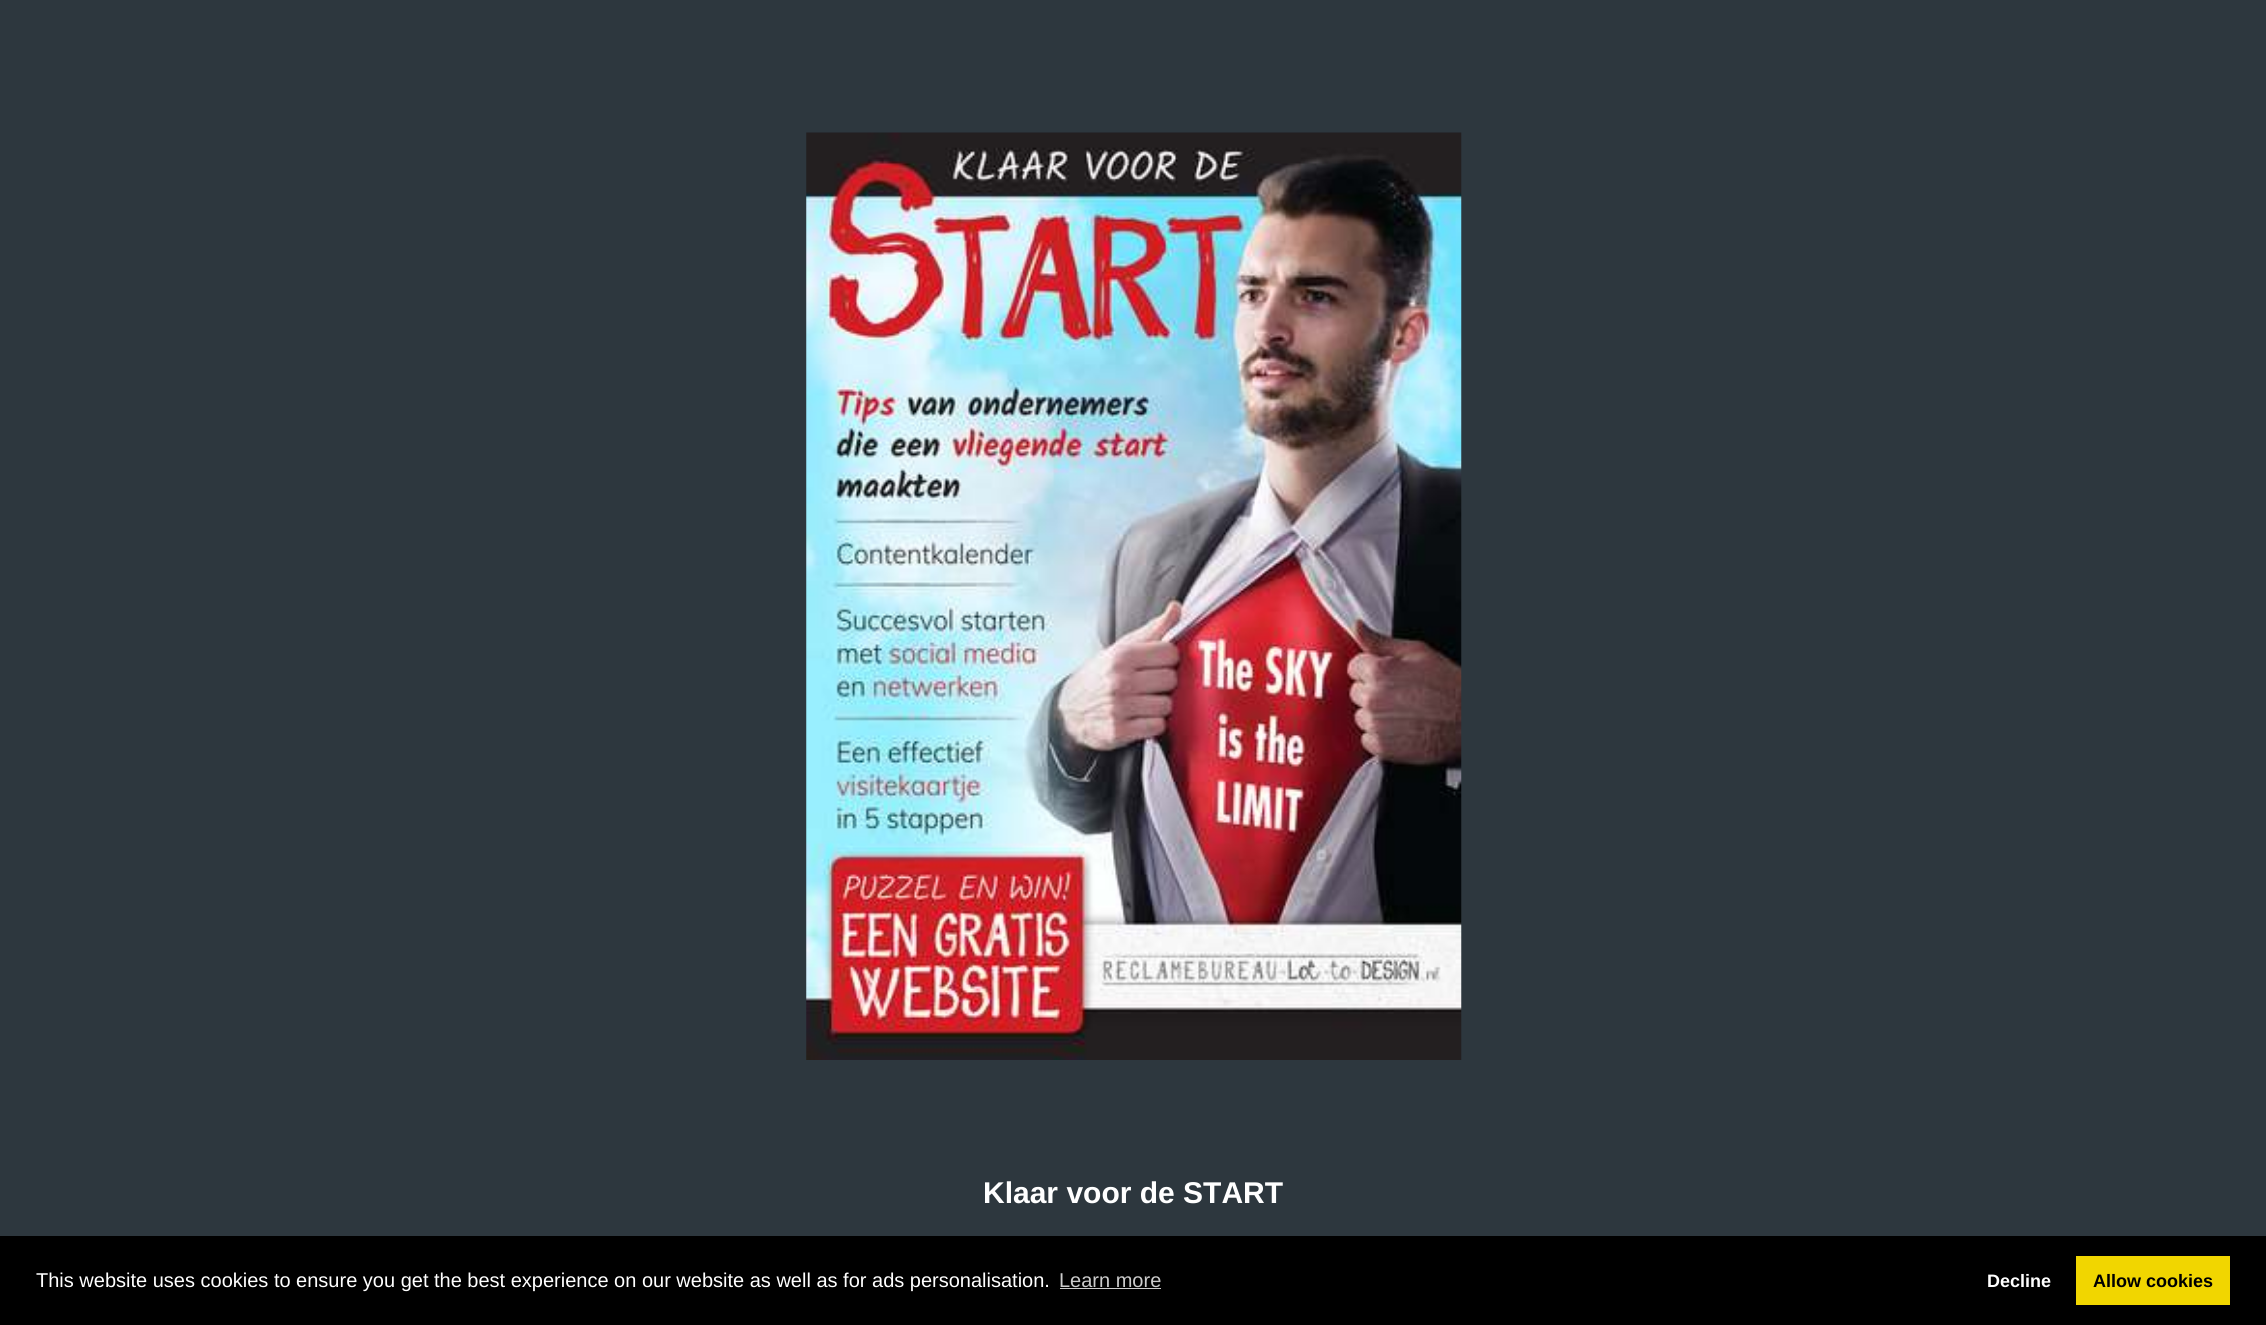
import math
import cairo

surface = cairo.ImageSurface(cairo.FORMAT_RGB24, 2266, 1325)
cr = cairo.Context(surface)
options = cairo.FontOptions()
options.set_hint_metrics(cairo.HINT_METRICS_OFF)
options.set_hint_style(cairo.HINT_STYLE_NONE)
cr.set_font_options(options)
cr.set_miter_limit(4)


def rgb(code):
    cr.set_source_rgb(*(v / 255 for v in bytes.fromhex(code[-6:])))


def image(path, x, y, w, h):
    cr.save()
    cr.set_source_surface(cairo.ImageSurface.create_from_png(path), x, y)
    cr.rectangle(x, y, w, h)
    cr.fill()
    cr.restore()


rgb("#2d373e")
cr.paint()
image("img/1.png", 806, 132, 656, 928)
for x, y, w, h, color in [
    (0, 1236, 2266, 89, "#000000"),
    (1060, 1288, 101, 1, "#cccccc"),
    (2076, 1256, 154, 49, "#f1d600"),
]:
    rgb(color)
    cr.rectangle(x, y, w, h)
    cr.fill()
cr.select_font_face("Liberation Sans", cairo.FONT_SLANT_NORMAL, cairo.FONT_WEIGHT_BOLD)
cr.set_font_size(30)
rgb("#ffffff")
cr.move_to(983, 1203)
cr.show_text("Klaar voor de START")
cr.select_font_face("Liberation Sans")
cr.set_font_size(20)
cr.move_to(36, 1287)
cr.show_text("This website uses cookies to ensure you get the best experience on our website as well as for ads personalisation.")
rgb("#cccccc")
cr.move_to(1059, 1287)
cr.show_text("Learn more")
cr.select_font_face("Liberation Sans", cairo.FONT_SLANT_NORMAL, cairo.FONT_WEIGHT_BOLD)
cr.set_font_size(18)
rgb("#ffffff")
cr.move_to(1987, 1287)
cr.show_text("Decline")
rgb("#000000")
cr.move_to(2093, 1287)
cr.show_text("Allow cookies")
surface.write_to_png("page.png")
